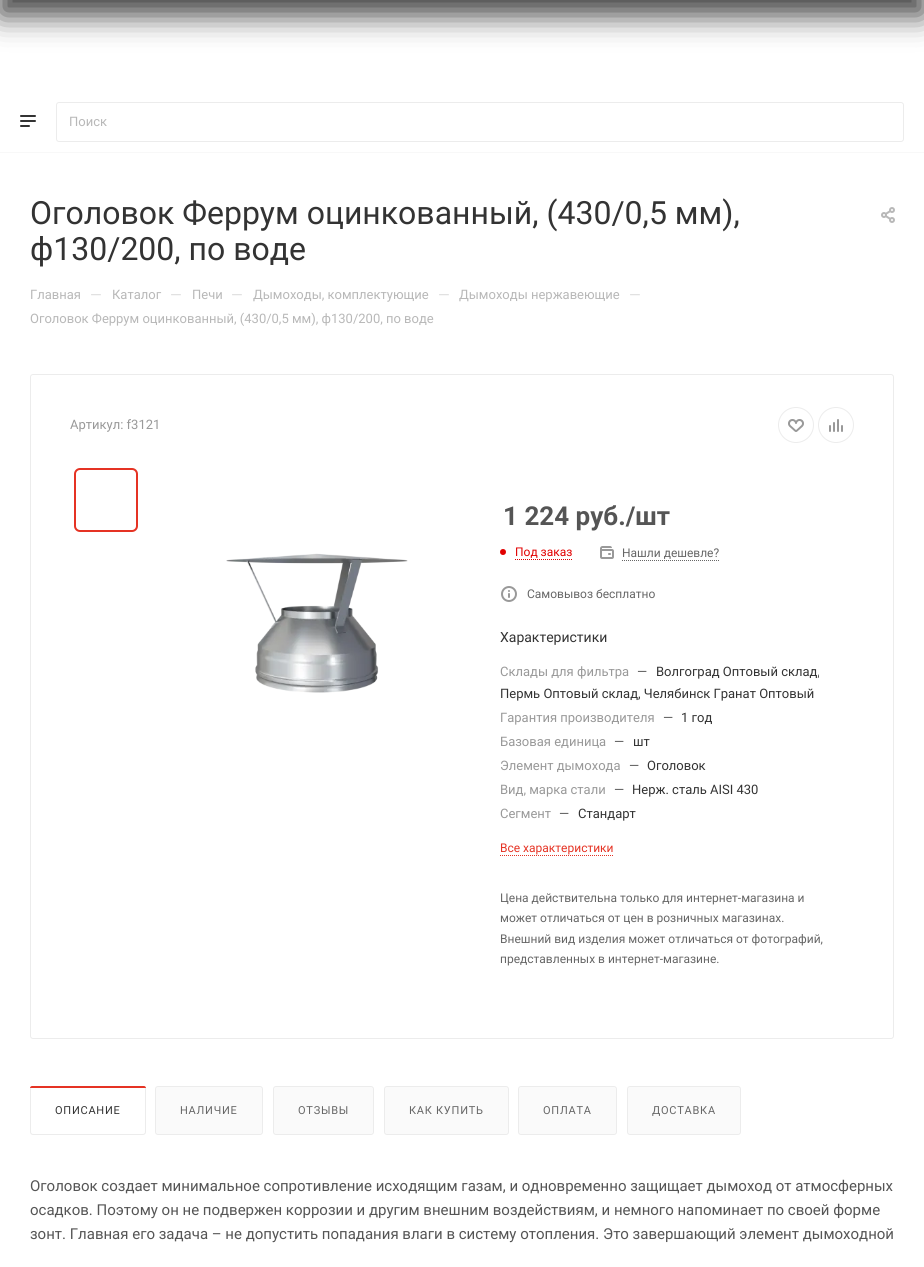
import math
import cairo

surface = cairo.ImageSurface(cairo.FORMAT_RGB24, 924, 1267)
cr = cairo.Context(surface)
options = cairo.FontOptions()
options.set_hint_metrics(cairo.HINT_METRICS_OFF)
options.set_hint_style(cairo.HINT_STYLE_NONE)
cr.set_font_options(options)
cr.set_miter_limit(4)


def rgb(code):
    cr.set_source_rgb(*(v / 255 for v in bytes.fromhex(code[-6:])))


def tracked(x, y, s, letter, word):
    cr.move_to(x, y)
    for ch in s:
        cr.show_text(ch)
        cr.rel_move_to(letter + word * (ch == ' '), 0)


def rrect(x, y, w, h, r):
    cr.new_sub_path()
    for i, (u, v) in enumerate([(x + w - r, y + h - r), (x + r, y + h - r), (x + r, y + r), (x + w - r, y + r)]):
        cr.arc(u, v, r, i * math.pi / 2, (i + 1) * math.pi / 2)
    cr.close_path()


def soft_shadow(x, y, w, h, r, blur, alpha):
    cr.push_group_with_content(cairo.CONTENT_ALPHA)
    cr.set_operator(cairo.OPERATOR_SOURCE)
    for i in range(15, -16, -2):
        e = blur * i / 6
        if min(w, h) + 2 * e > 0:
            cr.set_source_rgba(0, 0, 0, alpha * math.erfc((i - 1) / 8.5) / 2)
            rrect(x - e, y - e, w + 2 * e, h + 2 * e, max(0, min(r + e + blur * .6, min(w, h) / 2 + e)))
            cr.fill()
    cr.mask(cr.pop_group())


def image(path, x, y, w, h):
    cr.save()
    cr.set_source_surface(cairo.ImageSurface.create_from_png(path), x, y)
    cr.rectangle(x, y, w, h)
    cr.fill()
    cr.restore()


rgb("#ffffff")
cr.paint()
rgb("#000000")
soft_shadow(0, -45, 924, 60, 0, 15, 0.75)
rgb("#f8f8f8")
cr.rectangle(0, 152, 924, 1)
cr.fill()
image("img/1.png", 20, 115, 16, 12)
rrect(56.5, 102.5, 847, 39, 2.5)
rgb("#ececec")
cr.set_line_width(1)
cr.stroke()
image("img/2.png", 881, 207, 14, 16)
rrect(30.5, 374.5, 863, 664, 2.5)
cr.stroke()
cr.arc(796, 425, 17.5, 0, 2 * math.pi)
cr.stroke()
image("img/3.png", 788, 419, 16, 13)
cr.arc(836, 425, 17.5, 0, 2 * math.pi)
cr.stroke()
image("img/4.png", 829, 419, 14, 13)
rrect(75, 469, 62, 62, 5)
rgb("#e53324")
cr.set_line_width(2)
cr.stroke()
image("img/5.png", 226, 553, 182, 140)
rgb("#e10000")
cr.arc(503, 552, 3, 0, 2 * math.pi)
cr.fill()
cr.new_path()
cr.move_to(515, 559.5)
cr.line_to(572, 559.5)
cr.set_line_width(1)
cr.set_dash([1, 1])
cr.stroke()
image("img/6.png", 600, 546, 14, 13)
cr.new_path()
cr.move_to(622, 560.5)
cr.line_to(719, 560.5)
rgb("#666666")
cr.stroke()
image("img/7.png", 501, 586, 16, 16)
cr.new_path()
cr.move_to(500, 855.5)
cr.line_to(613, 855.5)
rgb("#e53324")
cr.stroke()
rgb("#fafafa")
rrect(30.5, 1086.5, 115, 48, 2.5)
cr.fill_preserve()
rgb("#ececec")
cr.set_dash([])
cr.stroke()
rgb("#ffffff")
rrect(31, 1087, 114, 47, 3)
cr.fill()
rgb("#e53324")
cr.new_path()
cr.move_to(32, 1086)
cr.line_to(144, 1086)
cr.curve_to(145, 1086, 146, 1087, 146, 1088)
cr.line_to(30, 1088)
cr.curve_to(30, 1087, 31, 1086, 32, 1086)
cr.close_path()
cr.fill()
rgb("#fafafa")
rrect(155.5, 1086.5, 107, 48, 2.5)
cr.fill_preserve()
rgb("#ececec")
cr.stroke()
rgb("#fafafa")
rrect(273.5, 1086.5, 100, 48, 2.5)
cr.fill_preserve()
rgb("#ececec")
cr.stroke()
rgb("#fafafa")
rrect(384.5, 1086.5, 124, 48, 2.5)
cr.fill_preserve()
rgb("#ececec")
cr.stroke()
rgb("#fafafa")
rrect(518.5, 1086.5, 98, 48, 2.5)
cr.fill_preserve()
rgb("#ececec")
cr.stroke()
rgb("#fafafa")
rrect(627.5, 1086.5, 113, 48, 2.5)
cr.fill_preserve()
rgb("#ececec")
cr.stroke()
cr.select_font_face("Roboto")
cr.set_font_size(13)
rgb("#b8b8b8")
cr.move_to(69, 126)
cr.show_text("Поиск")
cr.set_font_size(32)
rgb("#333333")
cr.move_to(30, 224)
cr.show_text("Оголовок Феррум оцинкованный, (430/0,5 мм),")
cr.move_to(30, 260)
cr.show_text("ф130/200, по воде")
cr.set_font_size(13)
rgb("#b8b8b8")
cr.move_to(30, 299)
cr.show_text("Главная")
cr.set_font_size(15)
rgb("#dddddd")
cr.move_to(90, 300)
cr.show_text("—")
cr.set_font_size(13)
rgb("#b8b8b8")
cr.move_to(112, 299)
cr.show_text("Каталог")
cr.set_font_size(15)
rgb("#dddddd")
cr.move_to(170, 300)
cr.show_text("—")
cr.set_font_size(13)
rgb("#b8b8b8")
cr.move_to(192, 299)
cr.show_text("Печи")
cr.set_font_size(15)
rgb("#dddddd")
cr.move_to(231, 300)
cr.show_text("—")
cr.set_font_size(13)
rgb("#b8b8b8")
cr.move_to(253, 299)
cr.show_text("Дымоходы, комплектующие")
cr.set_font_size(15)
rgb("#dddddd")
cr.move_to(438, 300)
cr.show_text("—")
cr.set_font_size(13)
rgb("#b8b8b8")
cr.move_to(459, 299)
cr.show_text("Дымоходы нержавеющие")
cr.set_font_size(15)
rgb("#dddddd")
cr.move_to(629, 300)
cr.show_text("—")
cr.set_font_size(13)
rgb("#b8b8b8")
cr.move_to(30, 323)
cr.show_text("Оголовок Феррум оцинкованный, (430/0,5 мм), ф130/200, по воде")
rgb("#999999")
cr.move_to(70, 429)
cr.show_text("Артикул: f3121")
cr.select_font_face("Roboto", cairo.FONT_SLANT_NORMAL, cairo.FONT_WEIGHT_BOLD)
cr.set_font_size(26)
rgb("#555555")
cr.move_to(503, 525)
cr.show_text("1 224 руб./шт")
cr.select_font_face("Roboto")
cr.set_font_size(12)
rgb("#e10000")
cr.move_to(515, 556)
cr.show_text("Под заказ")
rgb("#666666")
cr.move_to(622, 557)
cr.show_text("Нашли дешевле?")
cr.move_to(527, 598)
cr.show_text("Самовывоз бесплатно")
cr.set_font_size(14)
rgb("#333333")
cr.move_to(500, 642)
cr.show_text("Характеристики")
cr.set_font_size(13)
rgb("#999999")
cr.move_to(500, 676)
cr.show_text("Склады для фильтра")
rgb("#555555")
cr.move_to(637, 676)
cr.show_text("—")
rgb("#333333")
cr.move_to(656, 676)
cr.show_text("Волгоград Оптовый склад,")
cr.move_to(500, 698)
cr.show_text("Пермь Оптовый склад, Челябинск Гранат Оптовый")
rgb("#999999")
cr.move_to(500, 722)
cr.show_text("Гарантия производителя")
rgb("#555555")
cr.move_to(663, 722)
cr.show_text("—")
rgb("#333333")
cr.move_to(681, 722)
cr.show_text("1 год")
rgb("#999999")
cr.move_to(500, 746)
cr.show_text("Базовая единица")
rgb("#555555")
cr.move_to(614, 746)
cr.show_text("—")
rgb("#333333")
cr.move_to(633, 746)
cr.show_text("шт")
rgb("#999999")
cr.move_to(500, 770)
cr.show_text("Элемент дымохода")
rgb("#555555")
cr.move_to(629, 770)
cr.show_text("—")
rgb("#333333")
cr.move_to(647, 770)
cr.show_text("Оголовок")
rgb("#999999")
cr.move_to(500, 794)
cr.show_text("Вид, марка стали")
rgb("#555555")
cr.move_to(614, 794)
cr.show_text("—")
rgb("#333333")
cr.move_to(632, 794)
cr.show_text("Нерж. сталь AISI 430")
rgb("#999999")
cr.move_to(500, 818)
cr.show_text("Сегмент")
rgb("#555555")
cr.move_to(559, 818)
cr.show_text("—")
rgb("#333333")
cr.move_to(578, 818)
cr.show_text("Стандарт")
cr.set_font_size(12)
rgb("#e53324")
cr.move_to(500, 852)
cr.show_text("Все характеристики")
rgb("#666666")
for x, y, s in [
    (500, 902, "Цена действительна только для интернет-магазина и"),
    (500, 922, "может отличаться от цен в розничных магазинах."),
    (500, 943, "Внешний вид изделия может отличаться от фотографий,"),
    (500, 963, "представленных в интернет-магазине."),
]:
    cr.move_to(x, y)
    cr.show_text(s)
cr.set_font_size(11)
rgb("#333333")
tracked(55, 1114, "ОПИСАНИЕ", 0.75, 0)
rgb("#666666")
for x, y, s in [
    (180, 1114, "НАЛИЧИЕ"),
    (298, 1114, "ОТЗЫВЫ"),
    (409, 1114, "КАК КУПИТЬ"),
    (543, 1114, "ОПЛАТА"),
    (652, 1114, "ДОСТАВКА"),
]:
    tracked(x, y, s, 0.75, 0)
cr.set_font_size(15)
rgb("#555555")
for x, y, s in [
    (30, 1191, "Оголовок создает минимальное сопротивление исходящим газам, и одновременно защищает дымоход от атмосферных"),
    (30, 1215, "осадков. Поэтому он не подвержен коррозии и другим внешним воздействиям, и немного напоминает по своей форме"),
    (30, 1239, "зонт. Главная его задача – не допустить попадания влаги в систему отопления. Это завершающий элемент дымоходной"),
]:
    cr.move_to(x, y)
    cr.show_text(s)
surface.write_to_png("page.png")
